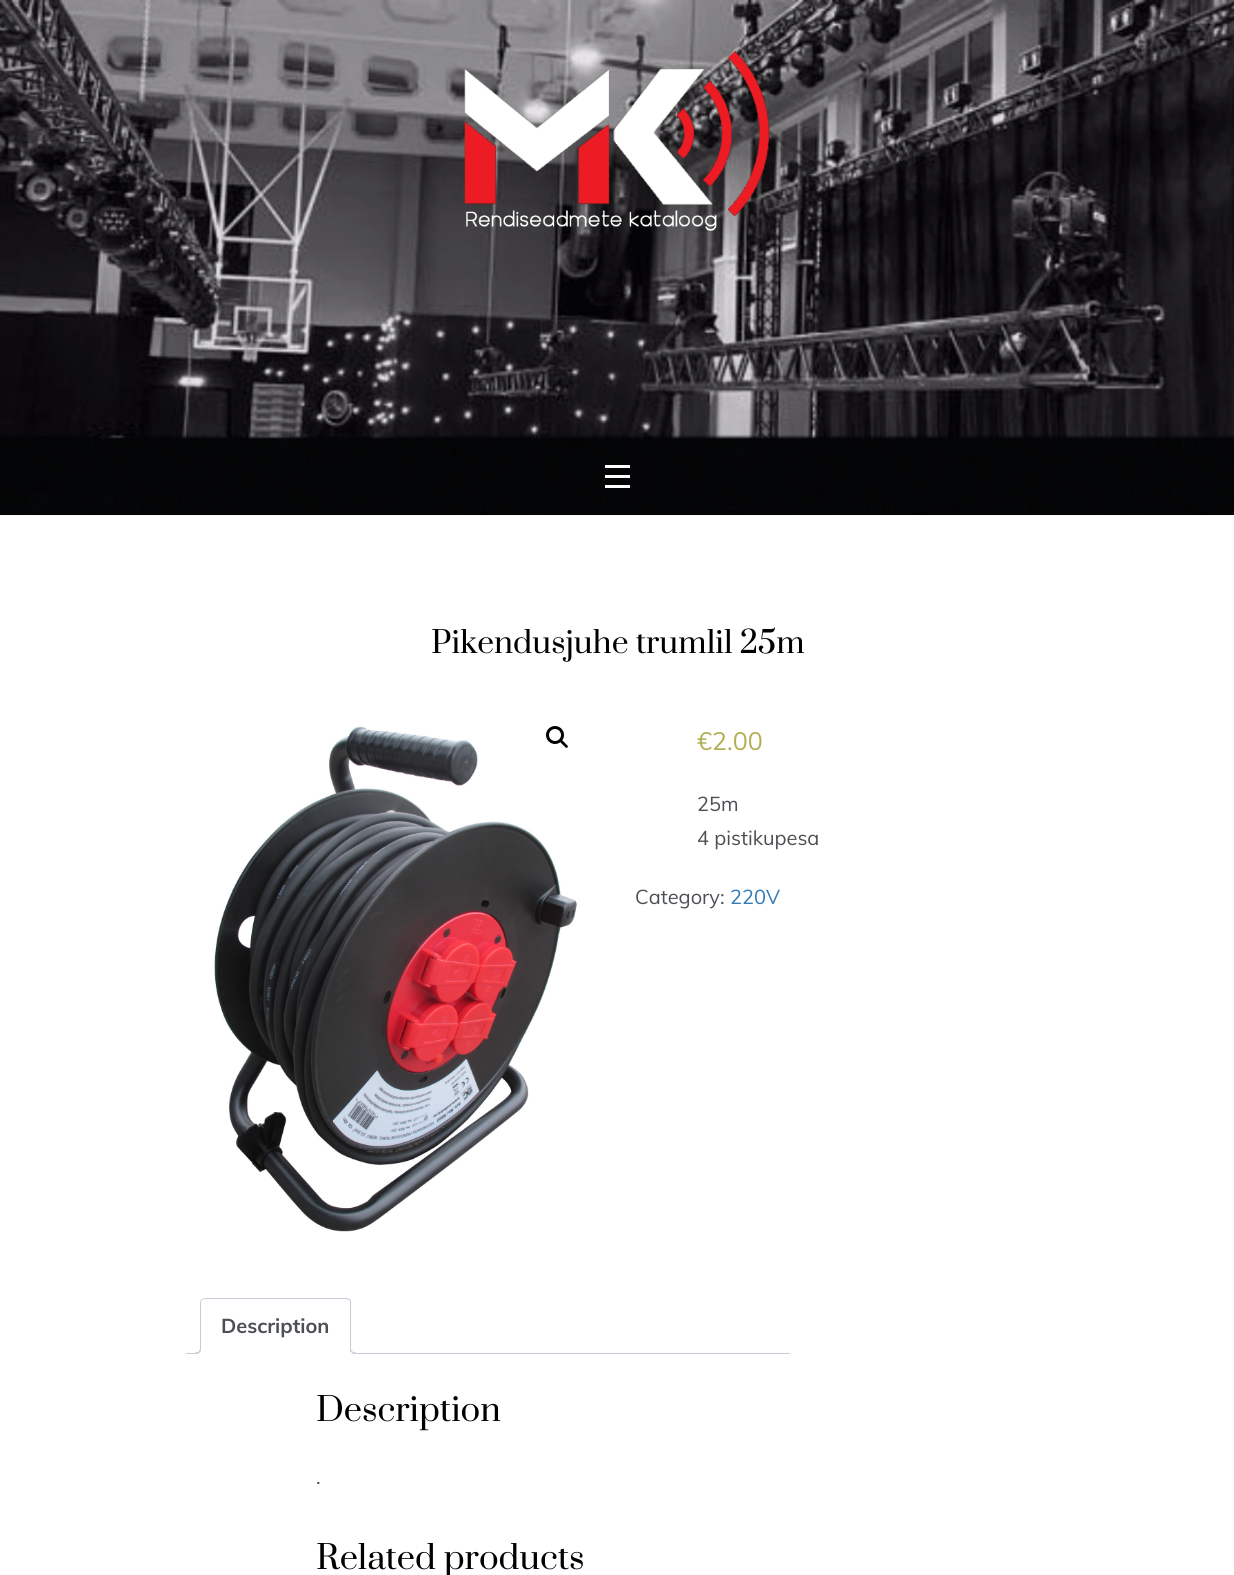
import math
import cairo

surface = cairo.ImageSurface(cairo.FORMAT_RGB24, 1234, 1575)
cr = cairo.Context(surface)
options = cairo.FontOptions()
options.set_hint_metrics(cairo.HINT_METRICS_OFF)
options.set_hint_style(cairo.HINT_STYLE_NONE)
cr.set_font_options(options)
cr.set_miter_limit(4)


def rgb(code):
    cr.set_source_rgb(*(v / 255 for v in bytes.fromhex(code[-6:])))


def image(path, x, y, w, h):
    cr.save()
    cr.set_source_surface(cairo.ImageSurface.create_from_png(path), x, y)
    cr.rectangle(x, y, w, h)
    cr.fill()
    cr.restore()


rgb("#ffffff")
cr.paint()
image("img/1.png", 0, 0, 1234, 515)
rgb("#fafafa")
cr.rectangle(0, 515, 1234, 1)
cr.fill()
image("img/2.png", 464, 51, 306, 180)
for x, y, w, h, color in [
    (605, 465, 25, 3, "#ffffff"),
    (605, 475, 25, 3, "#ffffff"),
    (605, 485, 25, 3, "#ffffff"),
]:
    rgb(color)
    cr.rectangle(x, y, w, h)
    cr.fill()
image("img/3.png", 214, 726, 364, 506)
cr.arc(555, 735, 7.5, 0, 2 * math.pi)
rgb("#000000")
cr.set_line_width(3)
cr.stroke()
cr.new_path()
cr.move_to(560.5, 740.5)
cr.curve_to(562, 739, 564, 742.5, 565, 743)
cr.curve_to(565.5, 744, 569, 746, 567.5, 747.5)
cr.curve_to(566, 749, 564, 745.5, 563, 745)
cr.curve_to(562.5, 744, 559, 742, 560.5, 740.5)
cr.close_path()
cr.fill()
rgb("#cfc8d8")
cr.rectangle(186, 1353, 604, 1)
cr.fill()
rgb("#ffffff")
cr.new_path()
cr.move_to(205, 1298)
cr.line_to(346, 1298)
cr.curve_to(349, 1298, 351, 1300, 351, 1303)
cr.line_to(351, 1354)
cr.line_to(200, 1354)
cr.line_to(200, 1303)
cr.curve_to(200, 1300, 202, 1298, 205, 1298)
cr.close_path()
cr.fill()
rgb("#cfc8d8")
cr.new_path()
cr.move_to(205, 1298)
cr.line_to(202, 1299)
cr.line_to(202, 1300)
cr.line_to(205, 1299)
cr.line_to(346, 1299)
cr.line_to(349, 1300)
cr.line_to(350, 1299)
cr.line_to(346, 1298)
cr.close_path()
cr.fill()
cr.new_path()
cr.move_to(351, 1354)
cr.line_to(351, 1301)
cr.line_to(350, 1299)
cr.line_to(349, 1300)
cr.line_to(350, 1301)
cr.line_to(350, 1352)
cr.close_path()
cr.fill()
rgb("#ffffff")
cr.new_path()
cr.move_to(351, 1354)
cr.line_to(200, 1354)
cr.line_to(202, 1352)
cr.line_to(350, 1352)
cr.close_path()
cr.fill()
rgb("#cfc8d8")
cr.new_path()
cr.move_to(200, 1354)
cr.line_to(202, 1352)
cr.line_to(201, 1352)
cr.line_to(201, 1301)
cr.line_to(202, 1300)
cr.line_to(202, 1299)
cr.curve_to(201, 1300, 200, 1301, 200, 1302)
cr.close_path()
cr.fill()
cr.save()
cr.rectangle(186, 1298, 604, 56)
cr.clip()
rgb("#ffffff")
cr.new_path()
cr.move_to(198, 1353.5)
cr.line_to(198, 1356)
cr.curve_to(202, 1356, 204, 1354, 204, 1350)
cr.line_to(201, 1350)
cr.curve_to(200.5, 1351.5, 199.5, 1353, 198, 1353.5)
cr.close_path()
cr.fill()
cr.restore()
cr.set_fill_rule(cairo.FILL_RULE_EVEN_ODD)
cr.new_path()
cr.move_to(195, 1347.5)
cr.line_to(201, 1347.5)
cr.curve_to(201, 1352, 199.5, 1354, 195, 1354)
cr.close_path()
cr.move_to(195, 1347.5)
cr.line_to(200, 1347.5)
cr.curve_to(200, 1351, 198.5, 1352.5, 195, 1352.5)
cr.close_path()
cr.fill()
cr.save()
cr.set_fill_rule(cairo.FILL_RULE_WINDING)
cr.rectangle(186, 1298, 604, 56)
cr.clip()
rgb("#ffffff")
cr.new_path()
cr.move_to(348, 1350)
cr.curve_to(348, 1354, 350, 1356, 354, 1356)
cr.line_to(354, 1353.5)
cr.curve_to(352, 1353.5, 350.5, 1352, 350, 1350)
cr.close_path()
cr.fill()
cr.restore()
cr.new_path()
cr.move_to(350, 1347.5)
cr.line_to(356, 1347.5)
cr.line_to(356, 1354)
cr.curve_to(353, 1354, 350, 1352.5, 350, 1349)
cr.close_path()
cr.move_to(351, 1347.5)
cr.line_to(356, 1347.5)
cr.line_to(356, 1352.5)
cr.curve_to(354, 1352.5, 351, 1351.5, 351, 1349)
cr.close_path()
cr.fill()
cr.select_font_face("Prata")
cr.set_font_size(30)
rgb("#000000")
cr.move_to(431, 653)
cr.show_text("Pikendusjuhe trumlil 25m")
cr.select_font_face("Muli")
cr.set_font_size(25)
rgb("#b3af54")
cr.move_to(697, 750)
cr.show_text("€2.00")
cr.set_font_size(20)
rgb("#4c4f53")
for x, y, s in [
    (697, 811, "25m"),
    (697, 845, "4 pistikupesa"),
    (635, 904, "Category:"),
]:
    cr.move_to(x, y)
    cr.show_text(s)
rgb("#337ab7")
cr.move_to(730, 904)
cr.show_text("220V")
cr.select_font_face("Muli", cairo.FONT_SLANT_NORMAL, cairo.FONT_WEIGHT_BOLD)
rgb("#4c4f53")
cr.move_to(221, 1333)
cr.show_text("Description")
cr.select_font_face("Prata")
cr.set_font_size(32.5)
rgb("#000000")
cr.move_to(316, 1421)
cr.show_text("Description")
cr.select_font_face("Muli")
cr.set_font_size(20)
rgb("#4c4f53")
cr.move_to(316, 1484)
cr.show_text(".")
cr.select_font_face("Prata")
cr.set_font_size(32.5)
rgb("#000000")
cr.move_to(316, 1569)
cr.show_text("Related products")
surface.write_to_png("page.png")
